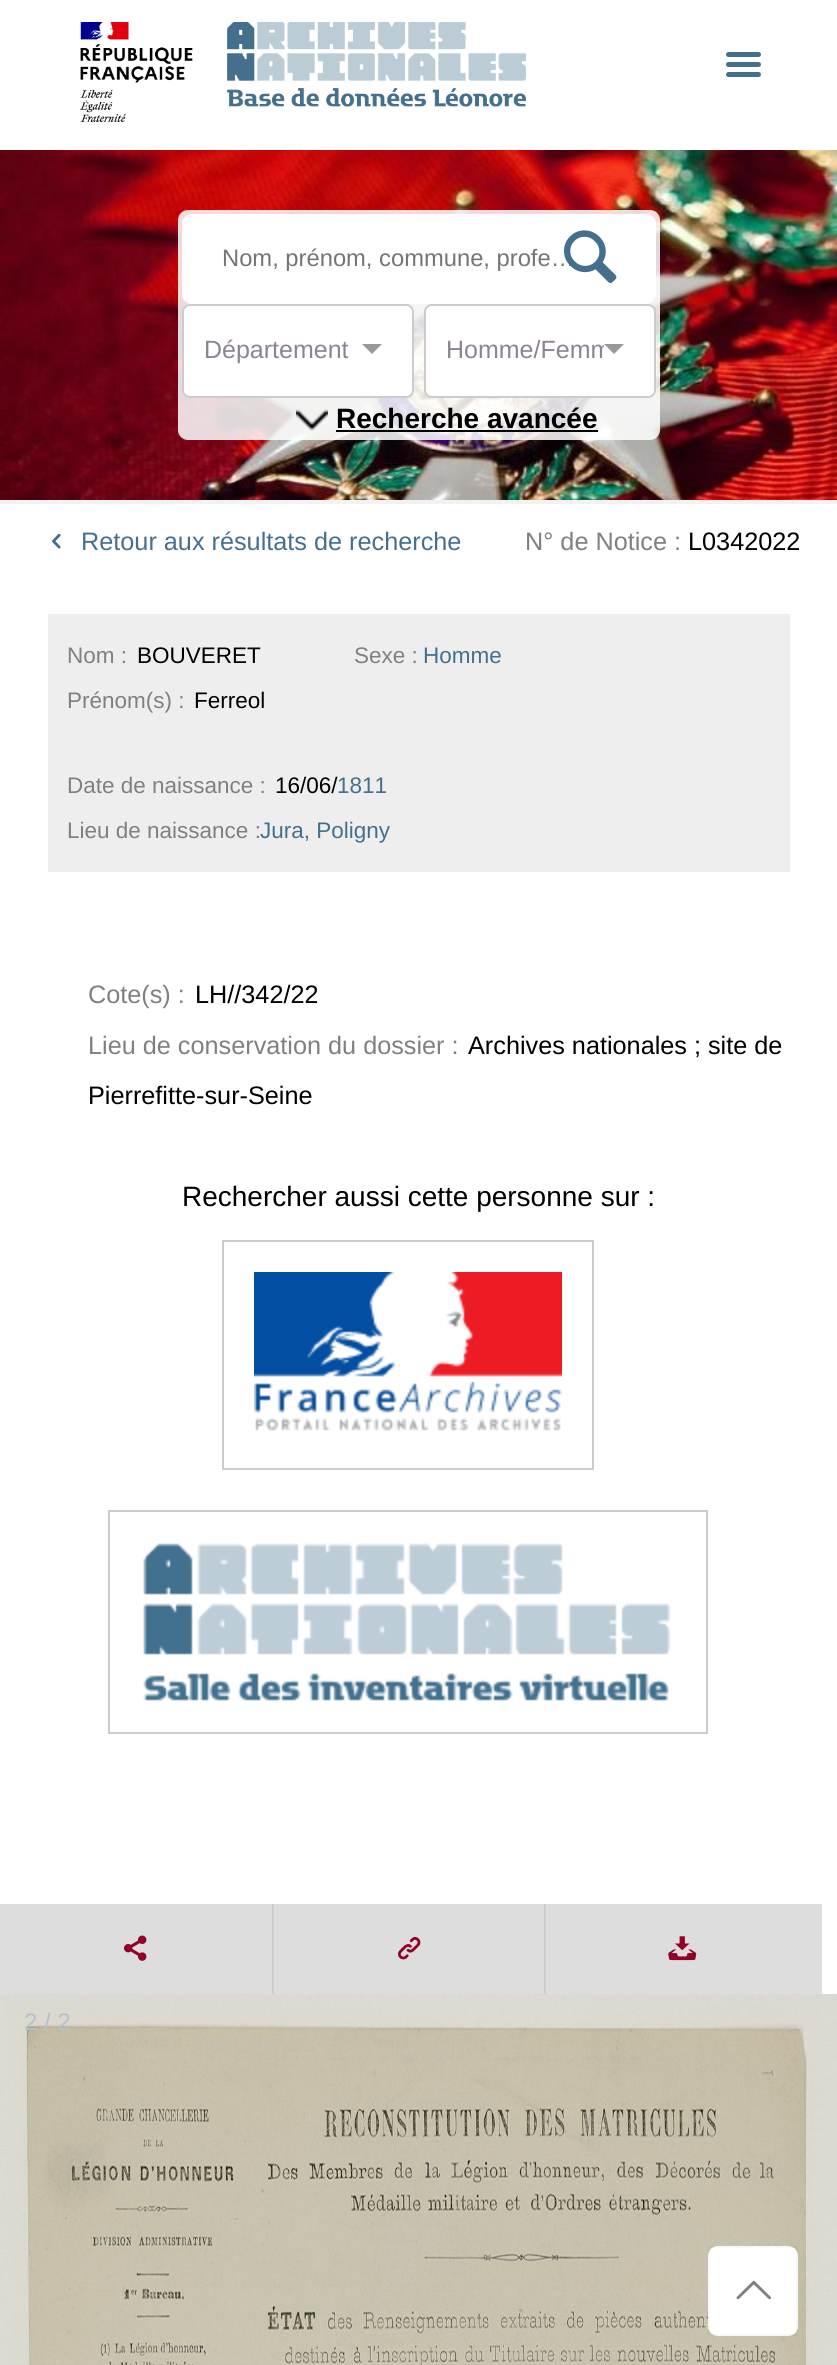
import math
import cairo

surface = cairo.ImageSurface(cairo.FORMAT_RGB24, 837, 2365)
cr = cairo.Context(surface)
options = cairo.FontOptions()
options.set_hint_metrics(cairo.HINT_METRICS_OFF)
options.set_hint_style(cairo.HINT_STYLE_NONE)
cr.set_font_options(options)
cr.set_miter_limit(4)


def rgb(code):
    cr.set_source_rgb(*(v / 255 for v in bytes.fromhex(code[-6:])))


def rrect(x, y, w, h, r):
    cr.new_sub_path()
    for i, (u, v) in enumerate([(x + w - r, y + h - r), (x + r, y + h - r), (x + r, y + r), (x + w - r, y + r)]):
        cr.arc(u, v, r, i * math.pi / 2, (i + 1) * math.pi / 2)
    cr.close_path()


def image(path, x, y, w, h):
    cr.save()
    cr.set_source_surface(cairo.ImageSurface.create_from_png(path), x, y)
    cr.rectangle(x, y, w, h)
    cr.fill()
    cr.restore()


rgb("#ffffff")
cr.paint()
image("img/1.png", 0, 150, 837, 350)
image("img/2.png", 80, 22, 446, 100)
image("img/3.png", 726, 52, 35, 25)
cr.set_source_rgba(1, 1, 1, 0.85)
rrect(178, 210, 482, 230, 10)
cr.fill()
rgb("#ffffff")
rrect(182, 214, 474, 90, 10)
cr.fill()
rrect(183, 305, 230, 92, 7)
cr.fill_preserve()
rgb("#cccccc")
cr.stroke()
rgb("#999999")
cr.new_path()
cr.move_to(362, 344)
cr.line_to(382, 344)
cr.line_to(372, 354)
cr.close_path()
cr.fill()
rgb("#ffffff")
rrect(425, 305, 230, 92, 7)
cr.fill_preserve()
rgb("#cccccc")
cr.stroke()
rgb("#999999")
cr.new_path()
cr.move_to(604, 344)
cr.line_to(624, 344)
cr.line_to(614, 354)
cr.close_path()
cr.fill()
image("img/5.png", 296, 409, 32, 22)
rgb("#000000")
cr.rectangle(336, 430, 262, 2)
cr.fill()
rgb("#f2f2f2")
cr.rectangle(0, 500, 837, 4)
cr.fill()
image("img/6.png", 52, 533, 9, 16)
rgb("#eeeeee")
cr.rectangle(48, 614, 742, 258)
cr.fill()
cr.rectangle(223, 1241, 370, 228)
rgb("#cccccc")
cr.stroke()
image("img/7.png", 254, 1272, 308, 159)
cr.rectangle(109, 1511, 598, 222)
cr.stroke()
image("img/8.png", 143, 1543, 528, 158)
rgb("#dddddd")
cr.rectangle(0, 1904, 822, 90)
cr.fill()
image("img/9.png", 124, 1935, 23, 26)
rgb("#cccccc")
cr.rectangle(544, 1904, 2, 90)
cr.fill()
cr.rectangle(272, 1904, 2, 90)
cr.fill()
image("img/10.png", 398, 1937, 23, 23)
image("img/11.png", 668, 1936, 29, 25)
image("img/12.png", 0, 1994, 837, 371)
rgb("#ffffff")
rrect(708, 2246, 90, 90, 10)
cr.fill()
cr.rectangle(709, 2247, 88, 88)
cr.set_source_rgba(0, 0, 0, 0.03)
cr.stroke()
image("img/13.png", 736, 2280, 35, 20)
cr.select_font_face("Liberation Sans")
cr.set_font_size(23.75)
rgb("#757575")
cr.move_to(222, 266)
cr.show_text("Nom, prénom, commune, profe…")
image("img/4.png", 564, 230, 53, 53)
cr.set_font_size(25)
rgb("#8d8493")
cr.move_to(204, 358)
cr.show_text("Département")
cr.save()
cr.rectangle(426, 306, 178, 90)
cr.clip()
cr.move_to(446, 358)
cr.show_text("Homme/Femm")
cr.restore()
cr.select_font_face("Liberation Sans", cairo.FONT_SLANT_NORMAL, cairo.FONT_WEIGHT_BOLD)
cr.set_font_size(28)
rgb("#000000")
cr.move_to(336, 428)
cr.show_text("Recherche avancée")
cr.select_font_face("Liberation Sans")
cr.set_font_size(25.25)
rgb("#44708e")
cr.move_to(81, 550)
cr.show_text("Retour aux résultats de recherche")
rgb("#808080")
cr.move_to(525, 550)
cr.show_text("N° de Notice :")
rgb("#000000")
cr.move_to(688, 550)
cr.show_text("L0342022")
cr.set_font_size(22.5)
rgb("#808080")
cr.move_to(67, 663)
cr.show_text("Nom :")
rgb("#000000")
cr.move_to(137, 663)
cr.show_text("BOUVERET")
rgb("#808080")
cr.move_to(354, 663)
cr.show_text("Sexe :")
rgb("#44708e")
cr.move_to(423, 663)
cr.show_text("Homme")
rgb("#808080")
cr.move_to(67, 708)
cr.show_text("Prénom(s) :")
rgb("#000000")
cr.move_to(194, 708)
cr.show_text("Ferreol")
rgb("#808080")
cr.move_to(67, 793)
cr.show_text("Date de naissance :")
rgb("#000000")
cr.move_to(275, 793)
cr.show_text("16/06/")
rgb("#44708e")
cr.move_to(337, 793)
cr.show_text("1811")
rgb("#808080")
cr.move_to(67, 838)
cr.show_text("Lieu de naissance :")
rgb("#44708e")
cr.move_to(260, 838)
cr.show_text("Jura, Poligny")
cr.set_font_size(25.25)
rgb("#808080")
cr.move_to(88, 1003)
cr.show_text("Cote(s) :")
rgb("#000000")
cr.move_to(195, 1003)
cr.show_text("LH//342/22")
rgb("#808080")
cr.move_to(88, 1054)
cr.show_text("Lieu de conservation du dossier :")
rgb("#000000")
cr.move_to(468, 1054)
cr.show_text("Archives nationales ; site de")
cr.move_to(88, 1104)
cr.show_text("Pierrefitte-sur-Seine")
cr.set_font_size(28)
cr.move_to(182, 1206)
cr.show_text("Rechercher aussi cette personne sur :")
cr.set_font_size(24)
rgb("#b3c2cd")
cr.move_to(24, 2030)
cr.show_text("2 / 2")
surface.write_to_png("page.png")
